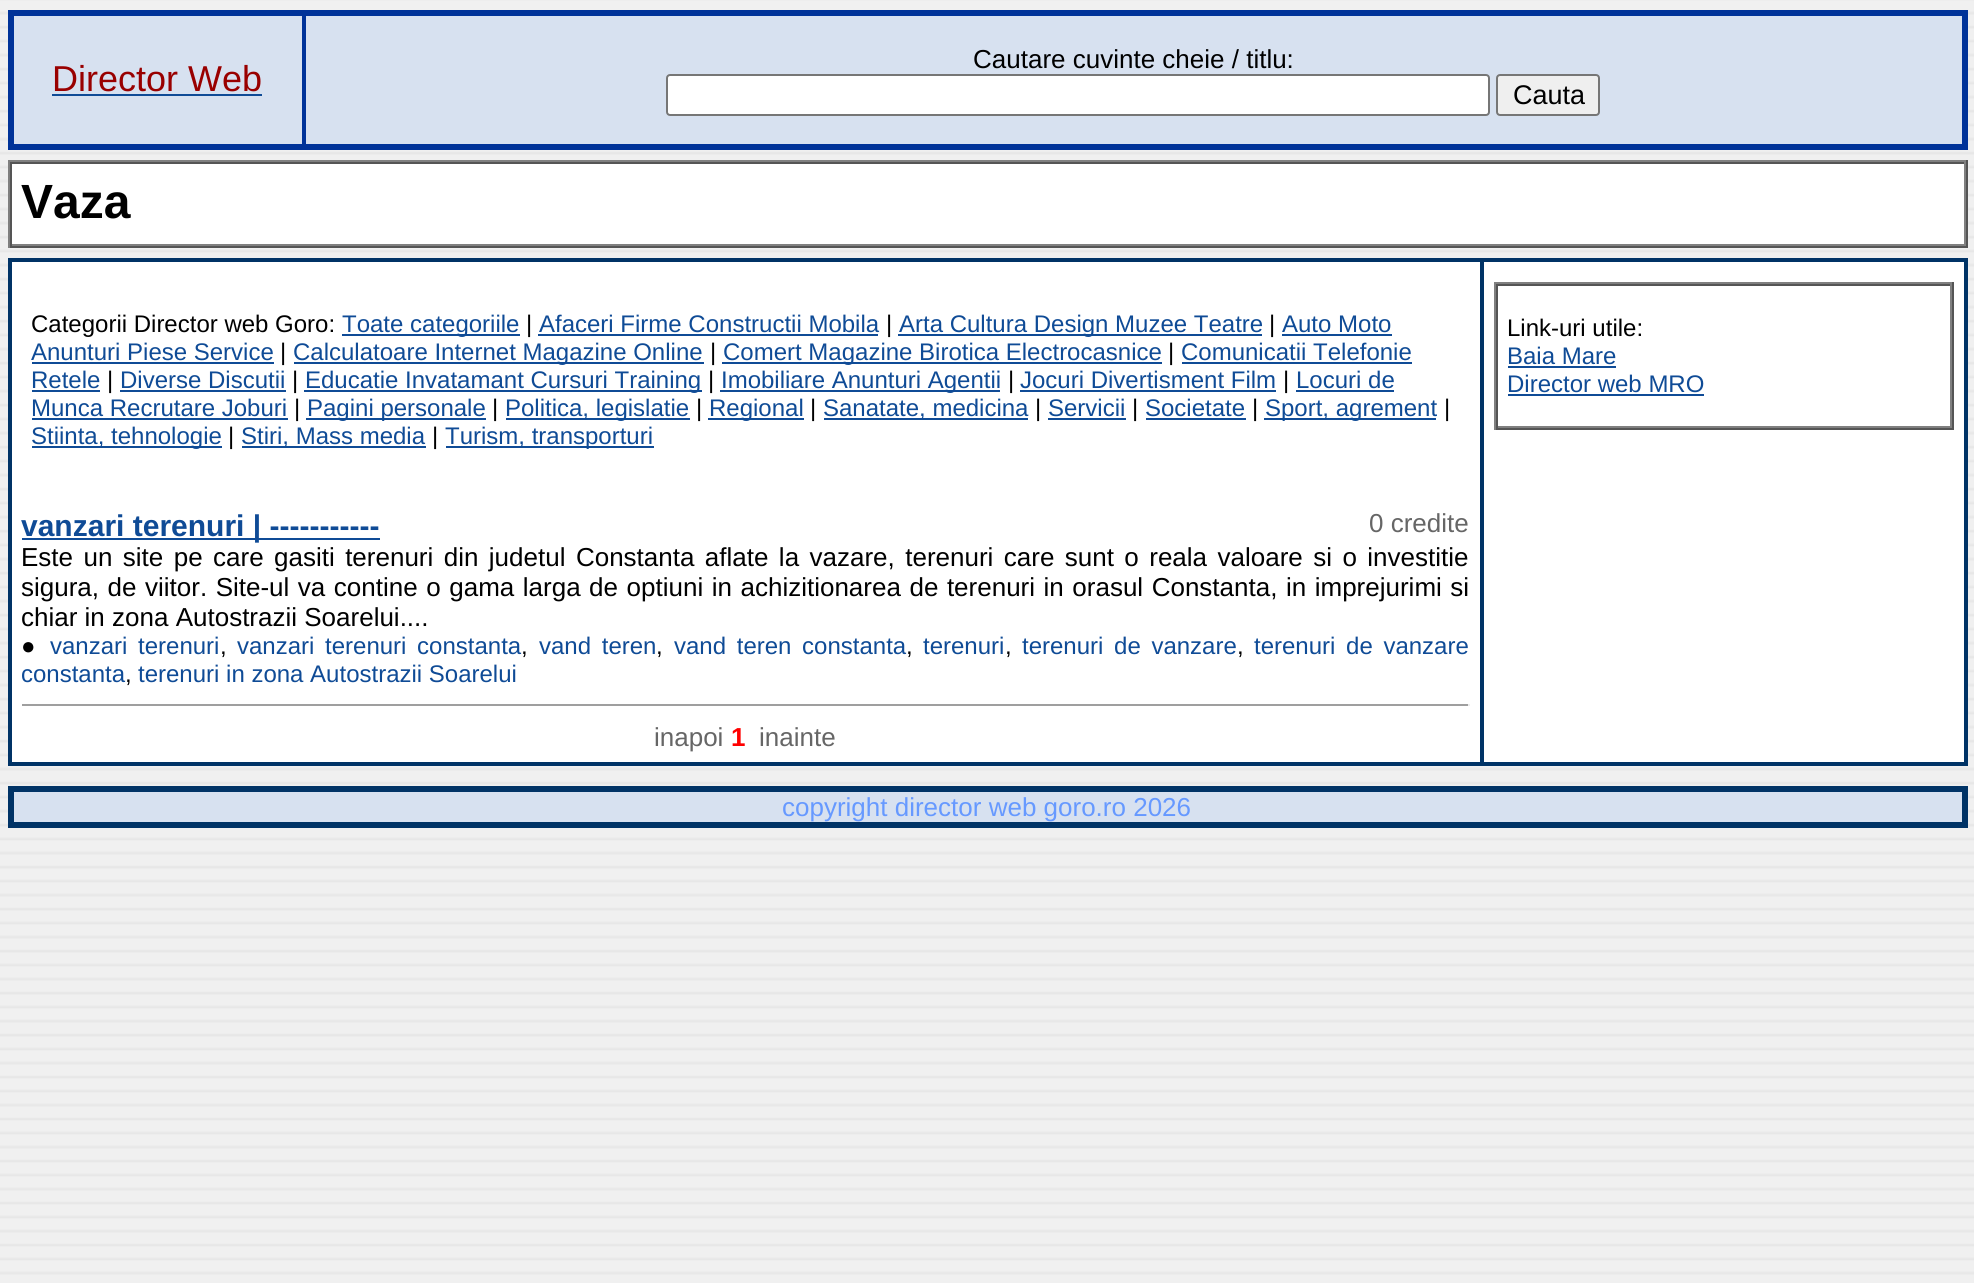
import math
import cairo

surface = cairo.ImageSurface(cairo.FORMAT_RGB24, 1974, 1283)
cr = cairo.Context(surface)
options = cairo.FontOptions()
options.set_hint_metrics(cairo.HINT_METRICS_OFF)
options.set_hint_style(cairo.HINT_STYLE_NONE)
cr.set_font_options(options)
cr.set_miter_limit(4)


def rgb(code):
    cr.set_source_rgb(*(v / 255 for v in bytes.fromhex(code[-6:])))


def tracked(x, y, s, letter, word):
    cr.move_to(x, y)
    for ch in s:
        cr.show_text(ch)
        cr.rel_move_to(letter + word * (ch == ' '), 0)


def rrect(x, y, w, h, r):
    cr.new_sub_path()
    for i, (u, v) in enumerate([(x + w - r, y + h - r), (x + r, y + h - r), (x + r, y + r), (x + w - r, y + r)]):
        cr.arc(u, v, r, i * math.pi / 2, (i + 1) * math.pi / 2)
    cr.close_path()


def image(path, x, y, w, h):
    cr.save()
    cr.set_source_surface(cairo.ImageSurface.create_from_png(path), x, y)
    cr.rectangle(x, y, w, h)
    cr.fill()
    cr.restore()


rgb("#ffffff")
cr.paint()
image("img/1.png", 0, 0, 1974, 1283)
rgb("#d7e1f0")
cr.rectangle(14, 16, 1948, 128)
cr.fill()
cr.rectangle(10, 12, 1956, 136)
rgb("#003399")
cr.set_line_width(4)
cr.stroke()
cr.rectangle(13, 15, 290, 130)
cr.set_line_width(2)
cr.stroke()
rgb("#0f4b96")
cr.rectangle(52, 94, 210, 2)
cr.fill()
cr.rectangle(305, 15, 1658, 130)
rgb("#003399")
cr.stroke()
rgb("#ffffff")
rrect(667, 75, 822, 40, 3)
cr.fill_preserve()
rgb("#767676")
cr.stroke()
rgb("#efefef")
rrect(1497, 75, 102, 40, 3)
cr.fill_preserve()
rgb("#767676")
cr.stroke()
for x, y, w, h, color in [
    (12, 164, 1952, 80, "#ffffff"),
    (8, 160, 1960, 2, "#808080"),
    (1966, 160, 2, 88, "#555555"),
    (8, 246, 1960, 2, "#555555"),
    (8, 160, 2, 88, "#808080"),
    (10, 162, 1956, 2, "#555555"),
    (1964, 162, 2, 84, "#808080"),
    (10, 244, 1956, 2, "#808080"),
    (10, 162, 2, 84, "#555555"),
    (12, 262, 1952, 500, "#ffffff"),
]:
    rgb(color)
    cr.rectangle(x, y, w, h)
    cr.fill()
cr.rectangle(9, 259, 1958, 506)
rgb("#003366")
cr.stroke()
cr.rectangle(11, 261, 1470, 502)
cr.stroke()
for x, y, w, h, color in [
    (342, 334, 178, 2, "#0f4b96"),
    (538, 334, 340, 2, "#0f4b96"),
    (898, 334, 364, 2, "#0f4b96"),
    (1282, 334, 110, 2, "#0f4b96"),
    (32, 362, 242, 2, "#0f4b96"),
    (294, 362, 410, 2, "#0f4b96"),
    (722, 362, 440, 2, "#0f4b96"),
    (1182, 362, 230, 2, "#0f4b96"),
    (32, 390, 68, 2, "#0f4b96"),
    (120, 390, 166, 2, "#0f4b96"),
    (304, 390, 398, 2, "#0f4b96"),
    (720, 390, 280, 2, "#0f4b96"),
    (1020, 390, 256, 2, "#0f4b96"),
    (1296, 390, 98, 2, "#0f4b96"),
    (32, 418, 256, 2, "#0f4b96"),
    (306, 418, 180, 2, "#0f4b96"),
    (506, 418, 184, 2, "#0f4b96"),
    (708, 418, 96, 2, "#0f4b96"),
    (824, 418, 204, 2, "#0f4b96"),
    (1048, 418, 78, 2, "#0f4b96"),
    (1146, 418, 100, 2, "#0f4b96"),
    (1264, 418, 172, 2, "#0f4b96"),
    (32, 446, 190, 2, "#0f4b96"),
    (242, 446, 184, 2, "#0f4b96"),
    (446, 446, 208, 2, "#0f4b96"),
    (22, 538, 358, 2, "#0f4b96"),
    (22, 704, 1448, 2, "#9f9f9f"),
    (1468, 704, 2, 2, "#eeeeee"),
]:
    rgb(color)
    cr.rectangle(x, y, w, h)
    cr.fill()
cr.rectangle(1483, 261, 482, 502)
rgb("#003366")
cr.stroke()
for x, y, w, h, color in [
    (1494, 282, 460, 2, "#808080"),
    (1952, 282, 2, 148, "#555555"),
    (1494, 428, 460, 2, "#555555"),
    (1494, 282, 2, 148, "#808080"),
    (1496, 284, 456, 2, "#555555"),
    (1950, 284, 2, 144, "#808080"),
    (1496, 426, 456, 2, "#808080"),
    (1496, 284, 2, 144, "#555555"),
    (1508, 366, 108, 2, "#0f4b96"),
    (1508, 394, 196, 2, "#0f4b96"),
    (14, 792, 1948, 30, "#d7e1f0"),
]:
    rgb(color)
    cr.rectangle(x, y, w, h)
    cr.fill()
cr.rectangle(10, 788, 1956, 38)
rgb("#003366")
cr.set_line_width(4)
cr.stroke()
cr.rectangle(13, 791, 1950, 32)
cr.set_line_width(2)
cr.stroke()
cr.select_font_face("Liberation Sans")
cr.set_font_size(36)
rgb("#990000")
cr.move_to(52, 91)
cr.show_text("Director Web")
cr.set_font_size(26)
rgb("#000000")
cr.move_to(973, 68)
cr.show_text("Cautare cuvinte cheie / titlu:")
cr.set_font_size(27)
cr.move_to(1513, 104)
cr.show_text("Cauta")
cr.select_font_face("Liberation Sans", cairo.FONT_SLANT_NORMAL, cairo.FONT_WEIGHT_BOLD)
cr.set_font_size(48)
cr.move_to(21, 218)
cr.show_text("Vaza")
cr.select_font_face("Liberation Sans")
cr.set_font_size(24)
cr.move_to(31, 332)
cr.show_text("Categorii Director web Goro:")
rgb("#0f4b96")
cr.move_to(342, 332)
cr.show_text("Toate categoriile")
rgb("#000000")
cr.move_to(526, 332)
cr.show_text("|")
rgb("#0f4b96")
cr.move_to(539, 332)
cr.show_text("Afaceri Firme Constructii Mobila")
rgb("#000000")
cr.move_to(886, 332)
cr.show_text("|")
rgb("#0f4b96")
cr.move_to(899, 332)
cr.show_text("Arta Cultura Design Muzee Teatre")
rgb("#000000")
cr.move_to(1269, 332)
cr.show_text("|")
rgb("#0f4b96")
cr.move_to(1282, 332)
cr.show_text("Auto Moto")
cr.move_to(31, 360)
cr.show_text("Anunturi Piese Service")
rgb("#000000")
cr.move_to(280, 360)
cr.show_text("|")
rgb("#0f4b96")
cr.move_to(293, 360)
cr.show_text("Calculatoare Internet Magazine Online")
rgb("#000000")
cr.move_to(710, 360)
cr.show_text("|")
rgb("#0f4b96")
cr.move_to(723, 360)
cr.show_text("Comert Magazine Birotica Electrocasnice")
rgb("#000000")
cr.move_to(1168, 360)
cr.show_text("|")
rgb("#0f4b96")
cr.move_to(1181, 360)
cr.show_text("Comunicatii Telefonie")
cr.move_to(31, 388)
cr.show_text("Retele")
rgb("#000000")
cr.move_to(107, 388)
cr.show_text("|")
rgb("#0f4b96")
cr.move_to(120, 388)
cr.show_text("Diverse Discutii")
rgb("#000000")
cr.move_to(292, 388)
cr.show_text("|")
rgb("#0f4b96")
cr.move_to(305, 388)
cr.show_text("Educatie Invatamant Cursuri Training")
rgb("#000000")
cr.move_to(708, 388)
cr.show_text("|")
rgb("#0f4b96")
cr.move_to(721, 388)
cr.show_text("Imobiliare Anunturi Agentii")
rgb("#000000")
cr.move_to(1008, 388)
cr.show_text("|")
rgb("#0f4b96")
cr.move_to(1020, 388)
cr.show_text("Jocuri Divertisment Film")
rgb("#000000")
cr.move_to(1283, 388)
cr.show_text("|")
rgb("#0f4b96")
cr.move_to(1296, 388)
cr.show_text("Locuri de")
cr.move_to(31, 416)
cr.show_text("Munca Recrutare Joburi")
rgb("#000000")
cr.move_to(294, 416)
cr.show_text("|")
rgb("#0f4b96")
cr.move_to(307, 416)
cr.show_text("Pagini personale")
rgb("#000000")
cr.move_to(492, 416)
cr.show_text("|")
rgb("#0f4b96")
cr.move_to(505, 416)
cr.show_text("Politica, legislatie")
rgb("#000000")
cr.move_to(696, 416)
cr.show_text("|")
rgb("#0f4b96")
cr.move_to(709, 416)
cr.show_text("Regional")
rgb("#000000")
cr.move_to(810, 416)
cr.show_text("|")
rgb("#0f4b96")
cr.move_to(823, 416)
cr.show_text("Sanatate, medicina")
rgb("#000000")
cr.move_to(1035, 416)
cr.show_text("|")
rgb("#0f4b96")
cr.move_to(1048, 416)
cr.show_text("Servicii")
rgb("#000000")
cr.move_to(1132, 416)
cr.show_text("|")
rgb("#0f4b96")
cr.move_to(1145, 416)
cr.show_text("Societate")
rgb("#000000")
cr.move_to(1252, 416)
cr.show_text("|")
rgb("#0f4b96")
cr.move_to(1265, 416)
cr.show_text("Sport, agrement")
rgb("#000000")
cr.move_to(1444, 416)
cr.show_text("|")
rgb("#0f4b96")
cr.move_to(31, 444)
cr.show_text("Stiinta, tehnologie")
rgb("#000000")
cr.move_to(228, 444)
cr.show_text("|")
rgb("#0f4b96")
cr.move_to(241, 444)
cr.show_text("Stiri, Mass media")
rgb("#000000")
cr.move_to(432, 444)
cr.show_text("|")
rgb("#0f4b96")
cr.move_to(445, 444)
cr.show_text("Turism, transporturi")
cr.select_font_face("Liberation Sans", cairo.FONT_SLANT_NORMAL, cairo.FONT_WEIGHT_BOLD)
cr.set_font_size(30)
cr.move_to(21, 536)
cr.show_text("vanzari terenuri | -----------")
cr.select_font_face("Liberation Sans")
cr.set_font_size(26)
rgb("#666666")
cr.move_to(1369, 532)
cr.show_text("0 credite")
rgb("#000000")
tracked(21, 566, "Este un site pe care gasiti terenuri din judetul Constanta aflate la vazare, terenuri care sunt o reala valoare si o investitie", 0, 3.2)
tracked(21, 596, "sigura, de viitor. Site-ul va contine o gama larga de optiuni in achizitionarea de terenuri in orasul Constanta, in imprejurimi si", 0, 1.3)
cr.move_to(21, 626)
cr.show_text("chiar in zona Autostrazii Soarelui....")
cr.set_font_size(24)
cr.move_to(21, 654)
cr.show_text("●")
rgb("#0f4b96")
for x, y, s in [
    (50, 654, "vanzari terenuri"),
    (237, 654, "vanzari terenuri constanta"),
    (539, 654, "vand teren"),
    (674, 654, "vand teren constanta"),
]:
    tracked(x, y, s, 0, 4)
cr.move_to(923, 654)
cr.show_text("terenuri")
tracked(1022, 654, "terenuri de vanzare", 0, 4)
tracked(1254, 654, "terenuri de vanzare", 0, 4)
rgb("#000000")
for x, y, s in [
    (220, 654, ","),
    (521, 654, ","),
    (656, 654, ","),
    (906, 654, ","),
    (1005, 654, ","),
    (1237, 654, ","),
]:
    cr.move_to(x, y)
    cr.show_text(s)
rgb("#0f4b96")
cr.move_to(21, 682)
cr.show_text("constanta")
rgb("#000000")
cr.move_to(125, 682)
cr.show_text(",")
rgb("#0f4b96")
cr.move_to(138, 682)
cr.show_text("terenuri in zona Autostrazii Soarelui")
cr.set_font_size(26)
rgb("#666666")
cr.move_to(654, 746)
cr.show_text("inapoi")
cr.select_font_face("Liberation Sans", cairo.FONT_SLANT_NORMAL, cairo.FONT_WEIGHT_BOLD)
rgb("#ff0000")
cr.move_to(731, 746)
cr.show_text("1")
cr.select_font_face("Liberation Sans")
rgb("#666666")
cr.move_to(759, 746)
cr.show_text("inainte")
cr.set_font_size(24)
rgb("#000000")
cr.move_to(1507, 336)
cr.show_text("Link-uri utile:")
rgb("#0f4b96")
cr.move_to(1507, 364)
cr.show_text("Baia Mare")
cr.move_to(1507, 392)
cr.show_text("Director web MRO")
cr.set_font_size(26)
rgb("#6699ff")
cr.move_to(782, 816)
cr.show_text("copyright director web goro.ro 2026")
surface.write_to_png("page.png")
